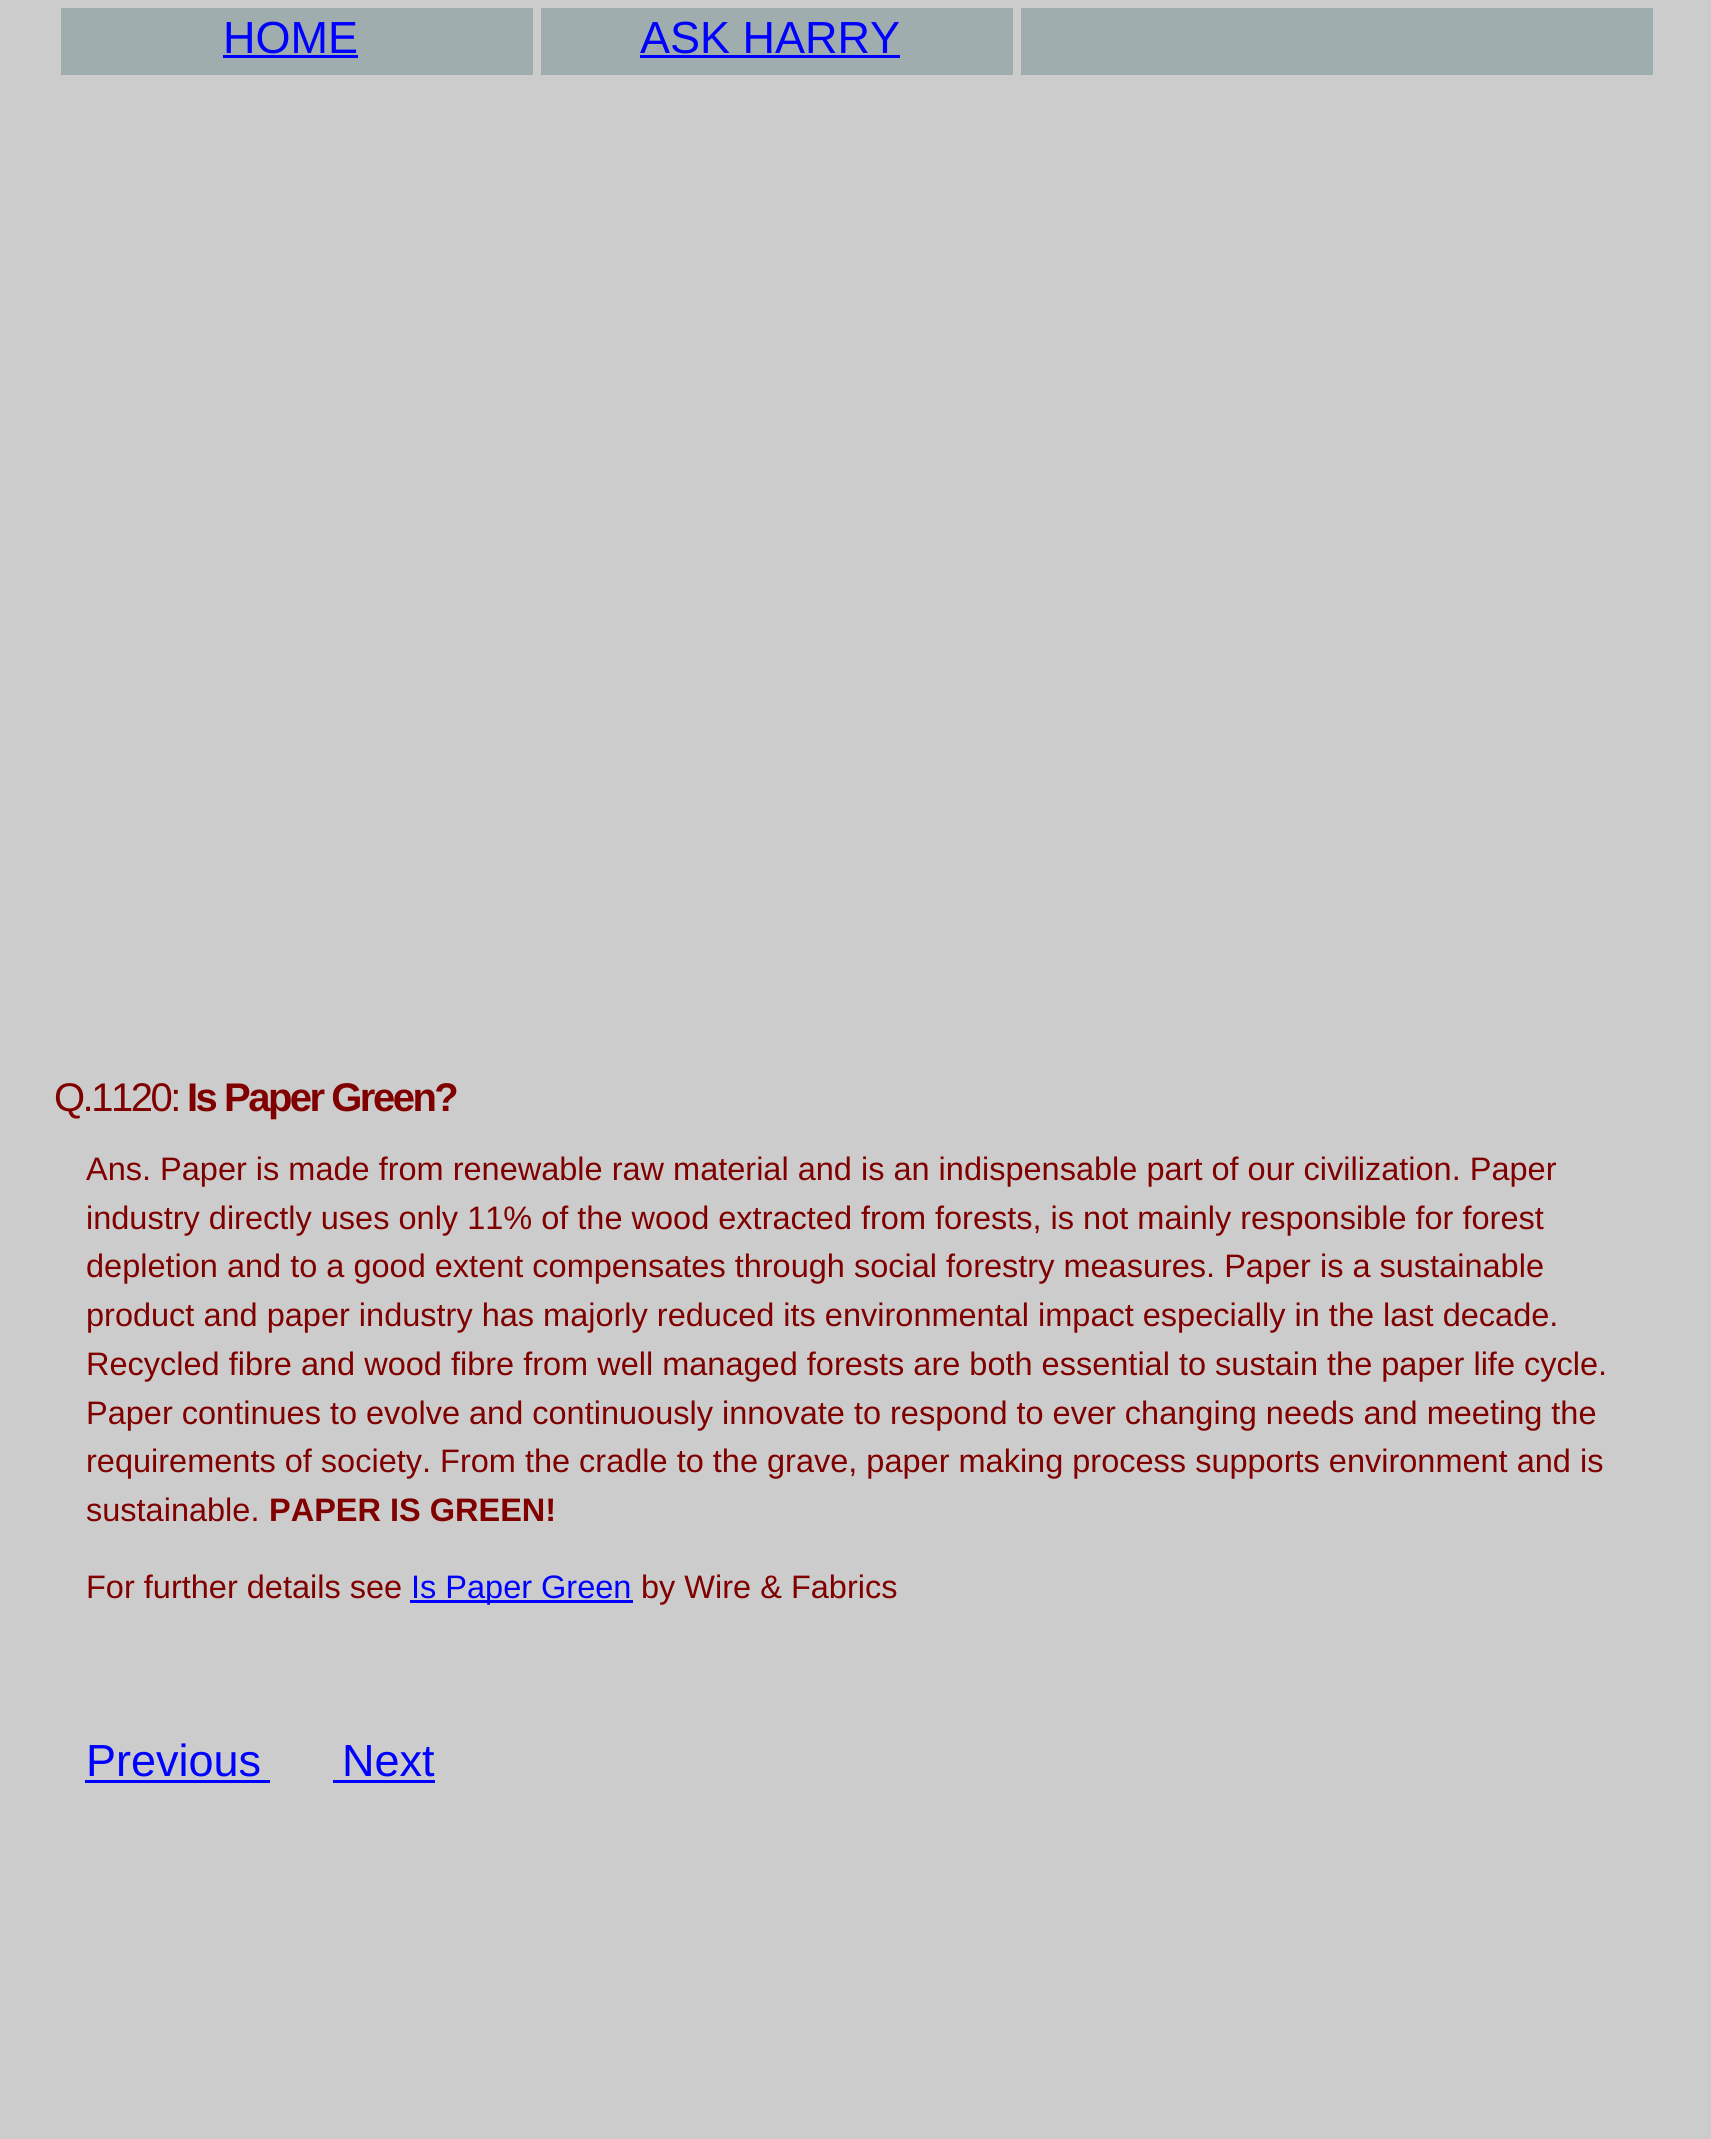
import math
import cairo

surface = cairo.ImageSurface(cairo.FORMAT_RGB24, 1711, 2139)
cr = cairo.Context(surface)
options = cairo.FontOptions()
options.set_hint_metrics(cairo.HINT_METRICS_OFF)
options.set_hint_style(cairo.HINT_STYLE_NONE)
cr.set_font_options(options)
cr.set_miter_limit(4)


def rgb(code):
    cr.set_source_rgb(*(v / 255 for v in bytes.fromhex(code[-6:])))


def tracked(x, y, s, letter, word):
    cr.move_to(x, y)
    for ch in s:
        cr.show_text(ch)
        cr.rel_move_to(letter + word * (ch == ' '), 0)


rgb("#cccccc")
cr.paint()
for x, y, w, h, color in [
    (61, 8, 472, 67, "#9fadae"),
    (223, 55, 135, 3, "#0000ff"),
    (541, 8, 472, 67, "#9fadae"),
    (640, 55, 260, 3, "#0000ff"),
    (1021, 8, 632, 67, "#9fadae"),
    (410, 1600, 223, 3, "#0000ff"),
    (85, 1780, 185, 3, "#0000ff"),
    (333, 1780, 102, 3, "#0000ff"),
]:
    rgb(color)
    cr.rectangle(x, y, w, h)
    cr.fill()
cr.select_font_face("Liberation Sans")
cr.set_font_size(45)
cr.move_to(223, 53)
cr.show_text("HOME")
cr.move_to(640, 53)
cr.show_text("ASK HARRY")
cr.set_font_size(40)
rgb("#800000")
tracked(54, 1111, "Q.1120:", -2.5, 0)
cr.select_font_face("Liberation Sans", cairo.FONT_SLANT_NORMAL, cairo.FONT_WEIGHT_BOLD)
tracked(187, 1111, "Is Paper Green?", -2.5, 0)
cr.select_font_face("Liberation Sans")
cr.set_font_size(32.5)
for x, y, s in [
    (86, 1180, "Ans. Paper is made from renewable raw material and is an indispensable part of our civilization. Paper"),
    (86, 1229, "industry directly uses only 11% of the wood extracted from forests, is not mainly responsible for forest"),
    (86, 1277, "depletion and to a good extent compensates through social forestry measures. Paper is a sustainable"),
    (86, 1326, "product and paper industry has majorly reduced its environmental impact especially in the last decade."),
    (86, 1375, "Recycled fibre and wood fibre from well managed forests are both essential to sustain the paper life cycle."),
    (86, 1424, "Paper continues to evolve and continuously innovate to respond to ever changing needs and meeting the"),
    (86, 1472, "requirements of society. From the cradle to the grave, paper making process supports environment and is"),
    (86, 1521, "sustainable."),
]:
    cr.move_to(x, y)
    cr.show_text(s)
cr.select_font_face("Liberation Sans", cairo.FONT_SLANT_NORMAL, cairo.FONT_WEIGHT_BOLD)
cr.move_to(269, 1521)
cr.show_text("PAPER IS GREEN!")
cr.select_font_face("Liberation Sans")
cr.move_to(86, 1598)
cr.show_text("For further details see")
rgb("#0000ff")
cr.move_to(411, 1598)
cr.show_text("Is Paper Green")
rgb("#800000")
cr.move_to(641, 1598)
cr.show_text("by Wire & Fabrics")
cr.set_font_size(45)
rgb("#0000ff")
cr.move_to(86, 1776)
cr.show_text("Previous")
cr.move_to(342, 1776)
cr.show_text("Next")
surface.write_to_png("page.png")
